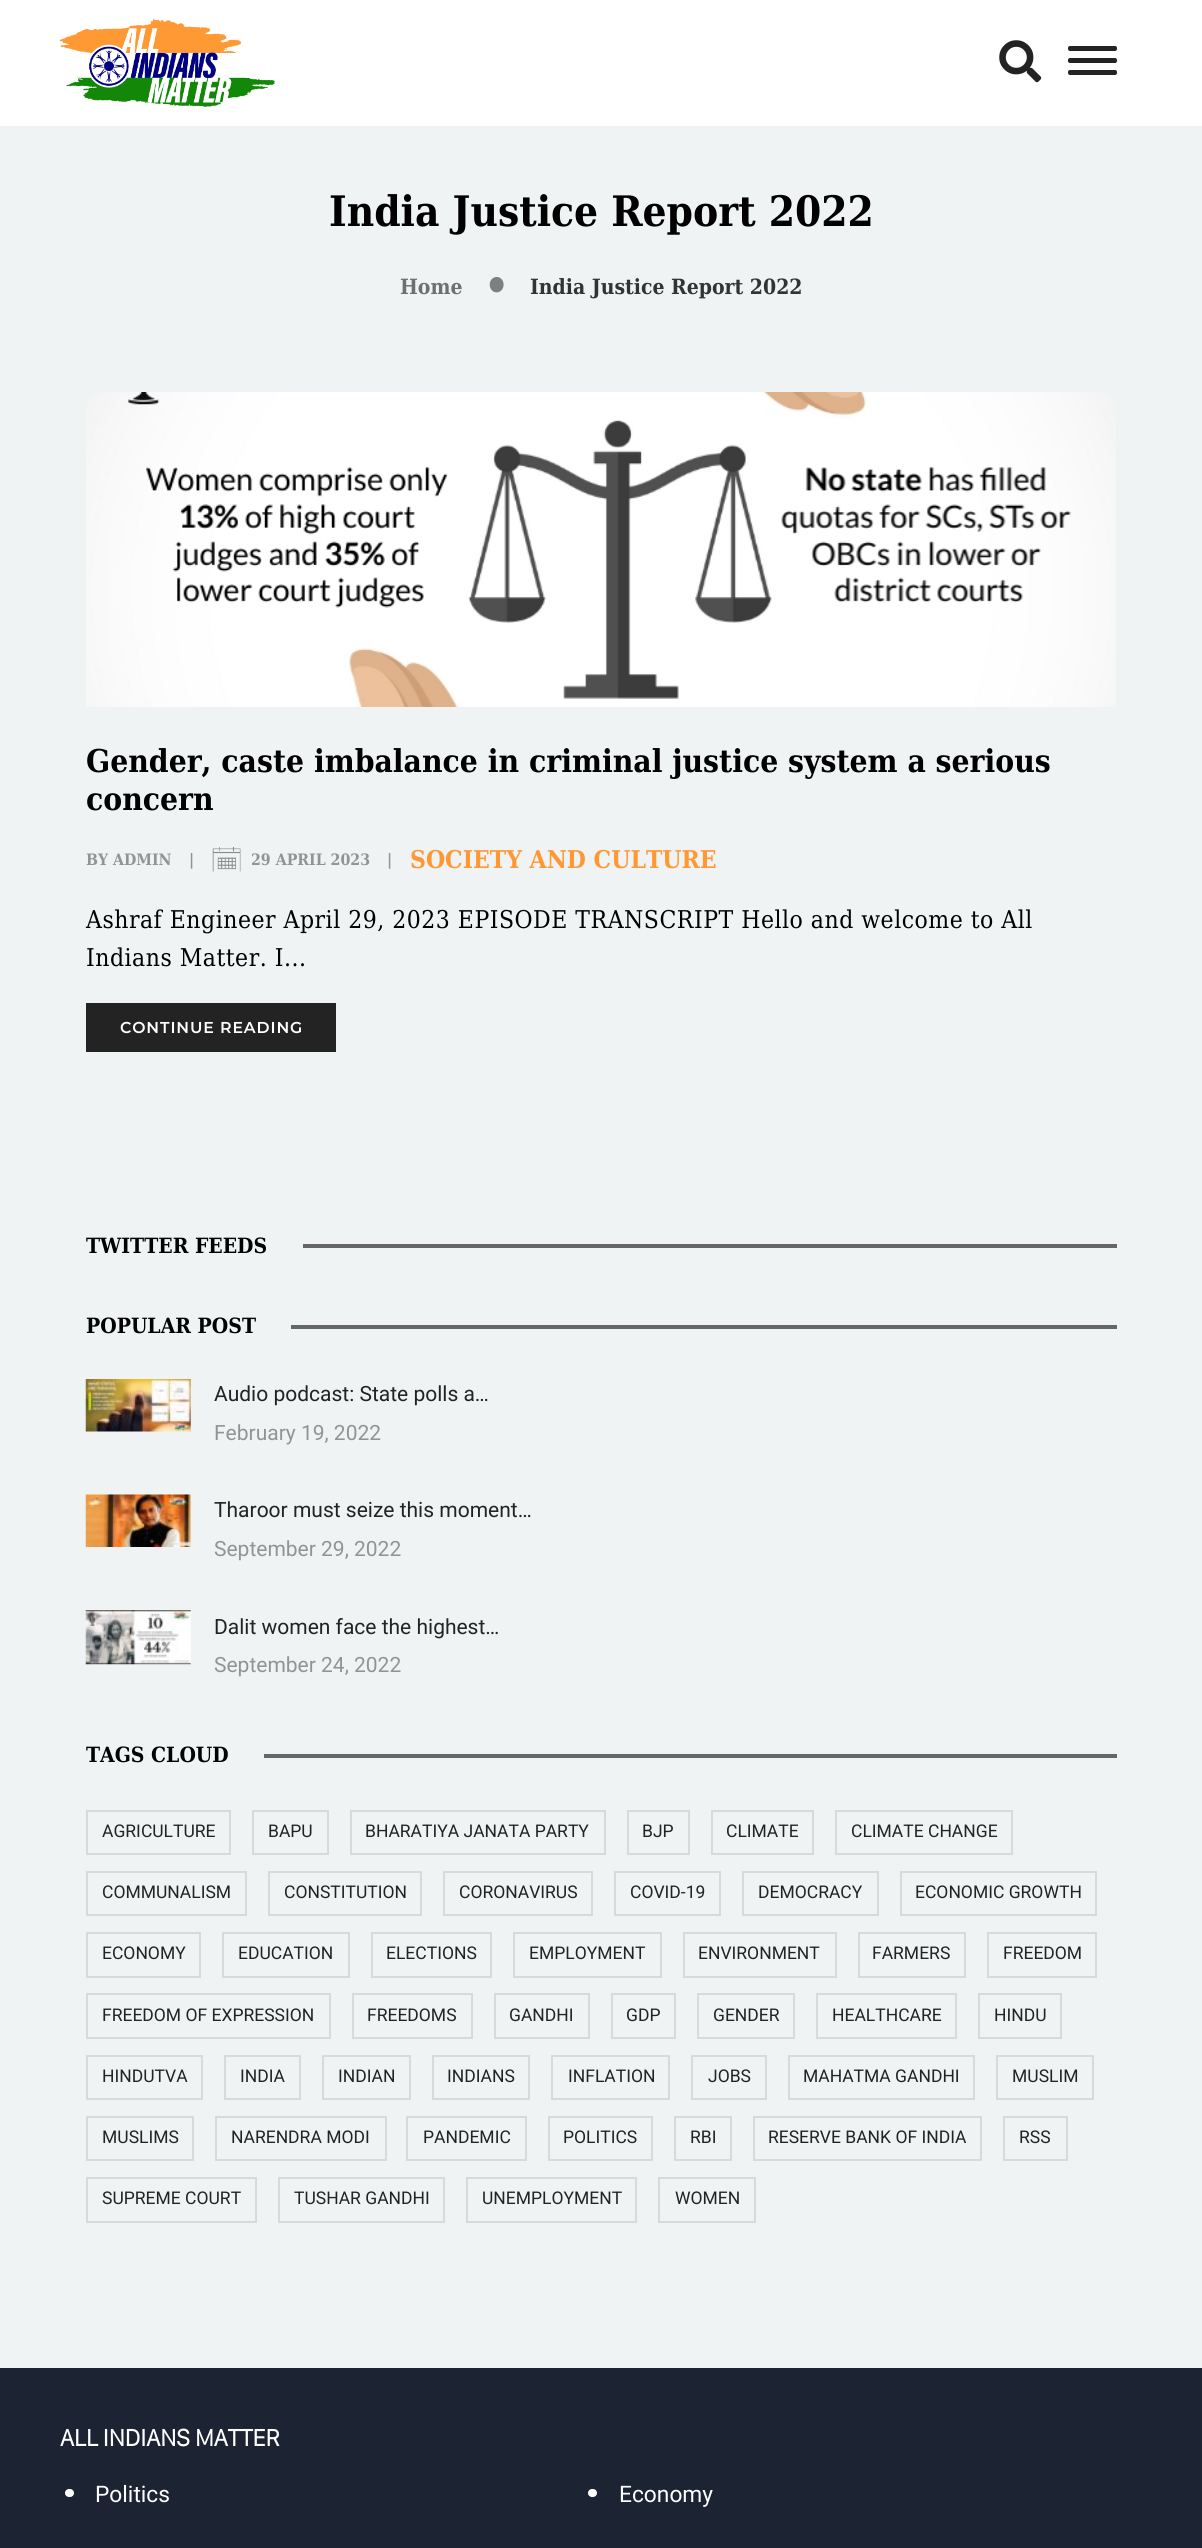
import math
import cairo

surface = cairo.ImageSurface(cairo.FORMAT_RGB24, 1202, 2548)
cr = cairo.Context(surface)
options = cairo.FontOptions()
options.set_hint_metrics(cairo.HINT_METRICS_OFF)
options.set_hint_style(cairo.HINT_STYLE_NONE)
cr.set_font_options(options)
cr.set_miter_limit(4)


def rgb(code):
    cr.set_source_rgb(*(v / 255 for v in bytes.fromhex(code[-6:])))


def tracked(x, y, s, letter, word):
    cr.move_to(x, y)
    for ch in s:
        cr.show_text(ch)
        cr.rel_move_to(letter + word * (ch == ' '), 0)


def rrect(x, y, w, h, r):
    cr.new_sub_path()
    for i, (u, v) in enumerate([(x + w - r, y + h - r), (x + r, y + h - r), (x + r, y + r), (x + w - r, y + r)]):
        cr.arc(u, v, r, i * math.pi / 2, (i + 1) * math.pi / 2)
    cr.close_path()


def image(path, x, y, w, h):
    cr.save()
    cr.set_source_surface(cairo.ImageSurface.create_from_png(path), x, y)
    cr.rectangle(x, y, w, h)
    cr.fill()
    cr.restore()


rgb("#eff3f4")
cr.paint()
rgb("#ffffff")
cr.rectangle(0, 0, 1202, 126)
cr.fill()
image("img/1.png", 59, 19, 216, 88)
image("img/2.png", 999, 40, 43, 43)
rgb("#232323")
rrect(1068, 46, 49, 5, 2)
cr.fill()
rrect(1068, 58, 49, 5, 2)
cr.fill()
rrect(1068, 70, 49, 5, 2)
cr.fill()
image("img/3.png", 86, 392, 1030, 315)
image("img/4.png", 212, 847, 29, 25)
for x, y, w, h, color in [
    (86, 1003, 250, 49, "#232323"),
    (303, 1244, 814, 4, "#666666"),
    (291, 1325, 826, 4, "#666666"),
]:
    rgb(color)
    cr.rectangle(x, y, w, h)
    cr.fill()
image("img/5.png", 85, 1379, 106, 53)
image("img/6.png", 85, 1494, 106, 53)
image("img/7.png", 85, 1610, 106, 55)
cr.rectangle(264, 1754, 853, 4)
cr.fill()
cr.rectangle(87, 1811, 143, 43)
rgb("#d9d9d9")
cr.stroke()
cr.rectangle(253, 1811, 75, 43)
cr.stroke()
cr.rectangle(351, 1811, 254, 43)
cr.stroke()
cr.rectangle(628, 1811, 61, 43)
cr.stroke()
cr.rectangle(712, 1811, 101, 43)
cr.stroke()
cr.rectangle(836, 1811, 176, 43)
cr.stroke()
cr.rectangle(87, 1872, 159, 43)
cr.stroke()
cr.rectangle(269, 1872, 152, 43)
cr.stroke()
cr.rectangle(444, 1872, 148, 43)
cr.stroke()
cr.rectangle(615, 1872, 105, 43)
cr.stroke()
cr.rectangle(743, 1872, 135, 43)
cr.stroke()
cr.rectangle(901, 1872, 195, 43)
cr.stroke()
cr.rectangle(87, 1933, 113, 44)
cr.stroke()
cr.rectangle(223, 1933, 126, 44)
cr.stroke()
cr.rectangle(372, 1933, 119, 44)
cr.stroke()
cr.rectangle(514, 1933, 147, 44)
cr.stroke()
cr.rectangle(684, 1933, 152, 44)
cr.stroke()
cr.rectangle(859, 1933, 106, 44)
cr.stroke()
cr.rectangle(988, 1933, 108, 44)
cr.stroke()
cr.rectangle(87, 1994, 243, 44)
cr.stroke()
cr.rectangle(353, 1994, 119, 44)
cr.stroke()
cr.rectangle(495, 1994, 94, 44)
cr.stroke()
cr.rectangle(612, 1994, 63, 44)
cr.stroke()
cr.rectangle(698, 1994, 96, 44)
cr.stroke()
cr.rectangle(817, 1994, 139, 44)
cr.stroke()
cr.rectangle(979, 1994, 82, 44)
cr.stroke()
cr.rectangle(87, 2056, 115, 43)
cr.stroke()
cr.rectangle(225, 2056, 75, 43)
cr.stroke()
cr.rectangle(323, 2056, 87, 43)
cr.stroke()
cr.rectangle(433, 2056, 96, 43)
cr.stroke()
cr.rectangle(552, 2056, 117, 43)
cr.stroke()
cr.rectangle(692, 2056, 74, 43)
cr.stroke()
cr.rectangle(789, 2056, 185, 43)
cr.stroke()
cr.rectangle(997, 2056, 96, 43)
cr.stroke()
cr.rectangle(87, 2117, 106, 43)
cr.stroke()
cr.rectangle(216, 2117, 170, 43)
cr.stroke()
cr.rectangle(407, 2117, 119, 43)
cr.stroke()
cr.rectangle(549, 2117, 103, 43)
cr.stroke()
cr.rectangle(675, 2117, 56, 43)
cr.stroke()
cr.rectangle(754, 2117, 227, 43)
cr.stroke()
cr.rectangle(1004, 2117, 63, 43)
cr.stroke()
cr.rectangle(87, 2178, 169, 44)
cr.stroke()
cr.rectangle(279, 2178, 165, 44)
cr.stroke()
cr.rectangle(467, 2178, 169, 44)
cr.stroke()
cr.rectangle(659, 2178, 96, 44)
cr.stroke()
rgb("#1c2433")
cr.rectangle(0, 2368, 1202, 180)
cr.fill()
rgb("#ffffff")
rrect(65, 2489, 9, 8, 4)
cr.fill()
rrect(588, 2489, 9, 8, 4)
cr.fill()
cr.select_font_face("DejaVu Serif", cairo.FONT_SLANT_NORMAL, cairo.FONT_WEIGHT_BOLD)
cr.set_font_size(42)
rgb("#000000")
cr.move_to(329, 226)
cr.show_text("India Justice Report 2022")
cr.set_font_size(21)
rgb("#6f6f6f")
cr.move_to(400, 294)
cr.show_text("Home")
cr.set_font_size(44)
rgb("#7e8080")
cr.move_to(484, 301)
cr.show_text("•")
cr.set_font_size(21)
rgb("#333333")
cr.move_to(530, 294)
cr.show_text("India Justice Report 2022")
cr.set_font_size(31.5)
rgb("#000000")
cr.move_to(86, 772)
cr.show_text("Gender, caste imbalance in criminal justice system a serious")
cr.move_to(86, 810)
cr.show_text("concern")
cr.set_font_size(15.75)
rgb("#939393")
for x, y, s in [
    (86, 865, "BY ADMIN"),
    (189, 865, "|"),
    (251, 865, "29 APRIL 2023"),
    (387, 865, "|"),
]:
    cr.move_to(x, y)
    cr.show_text(s)
cr.set_font_size(24.5)
rgb("#ff9832")
cr.move_to(410, 868)
cr.show_text("SOCIETY AND CULTURE")
cr.select_font_face("DejaVu Serif")
rgb("#000000")
tracked(86, 928, "Ashraf Engineer April 29, 2023 EPISODE TRANSCRIPT Hello and welcome to All", 0.5, 0)
tracked(86, 966, "Indians Matter. I...", 0.5, 0)
cr.select_font_face("Montserrat SemiBold")
cr.set_font_size(15.75)
rgb("#ffffff")
tracked(120, 1033, "CONTINUE READING", 0.9, 0)
cr.select_font_face("DejaVu Serif", cairo.FONT_SLANT_NORMAL, cairo.FONT_WEIGHT_BOLD)
cr.set_font_size(21)
rgb("#000000")
cr.move_to(86, 1253)
cr.show_text("TWITTER FEEDS")
cr.move_to(86, 1333)
cr.show_text("POPULAR POST")
cr.select_font_face("Roboto")
rgb("#232323")
cr.move_to(214, 1401)
cr.show_text("Audio podcast: State polls a…")
rgb("#939393")
cr.move_to(214, 1440)
cr.show_text("February 19, 2022")
rgb("#232323")
cr.move_to(214, 1517)
cr.show_text("Tharoor must seize this moment…")
rgb("#939393")
cr.move_to(214, 1556)
cr.show_text("September 29, 2022")
rgb("#232323")
cr.move_to(214, 1634)
cr.show_text("Dalit women face the highest…")
rgb("#939393")
cr.move_to(214, 1672)
cr.show_text("September 24, 2022")
cr.select_font_face("DejaVu Serif", cairo.FONT_SLANT_NORMAL, cairo.FONT_WEIGHT_BOLD)
rgb("#000000")
cr.move_to(86, 1762)
cr.show_text("TAGS CLOUD")
cr.select_font_face("Roboto")
cr.set_font_size(17.5)
rgb("#232323")
for x, y, s in [
    (102, 1837, "AGRICULTURE"),
    (268, 1837, "BAPU"),
    (365, 1837, "BHARATIYA JANATA PARTY"),
    (642, 1837, "BJP"),
    (726, 1837, "CLIMATE"),
    (851, 1837, "CLIMATE CHANGE"),
    (102, 1898, "COMMUNALISM"),
    (284, 1898, "CONSTITUTION"),
    (459, 1898, "CORONAVIRUS"),
    (630, 1898, "COVID-19"),
    (758, 1898, "DEMOCRACY"),
    (915, 1898, "ECONOMIC GROWTH"),
    (102, 1959, "ECONOMY"),
    (238, 1959, "EDUCATION"),
    (386, 1959, "ELECTIONS"),
    (529, 1959, "EMPLOYMENT"),
    (698, 1959, "ENVIRONMENT"),
    (872, 1959, "FARMERS"),
    (1003, 1959, "FREEDOM"),
    (102, 2021, "FREEDOM OF EXPRESSION"),
    (367, 2021, "FREEDOMS"),
    (509, 2021, "GANDHI"),
    (626, 2021, "GDP"),
    (713, 2021, "GENDER"),
    (832, 2021, "HEALTHCARE"),
    (994, 2021, "HINDU"),
    (102, 2082, "HINDUTVA"),
    (240, 2082, "INDIA"),
    (338, 2082, "INDIAN"),
    (447, 2082, "INDIANS"),
    (568, 2082, "INFLATION"),
    (708, 2082, "JOBS"),
    (803, 2082, "MAHATMA GANDHI"),
    (1012, 2082, "MUSLIM"),
    (102, 2143, "MUSLIMS"),
    (231, 2143, "NARENDRA MODI"),
    (423, 2143, "PANDEMIC"),
    (563, 2143, "POLITICS"),
    (690, 2143, "RBI"),
    (768, 2143, "RESERVE BANK OF INDIA"),
    (1019, 2143, "RSS"),
    (102, 2204, "SUPREME COURT"),
    (294, 2204, "TUSHAR GANDHI"),
    (482, 2204, "UNEMPLOYMENT"),
    (675, 2204, "WOMEN"),
]:
    cr.move_to(x, y)
    cr.show_text(s)
cr.select_font_face("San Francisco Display", cairo.FONT_SLANT_NORMAL, cairo.FONT_WEIGHT_BOLD)
cr.set_font_size(24.5)
rgb("#ffffff")
cr.move_to(60, 2446)
cr.show_text("ALL INDIANS MATTER")
cr.select_font_face("Roboto")
cr.set_font_size(22.75)
cr.move_to(95, 2502)
cr.show_text("Politics")
cr.move_to(619, 2502)
cr.show_text("Economy")
surface.write_to_png("page.png")
